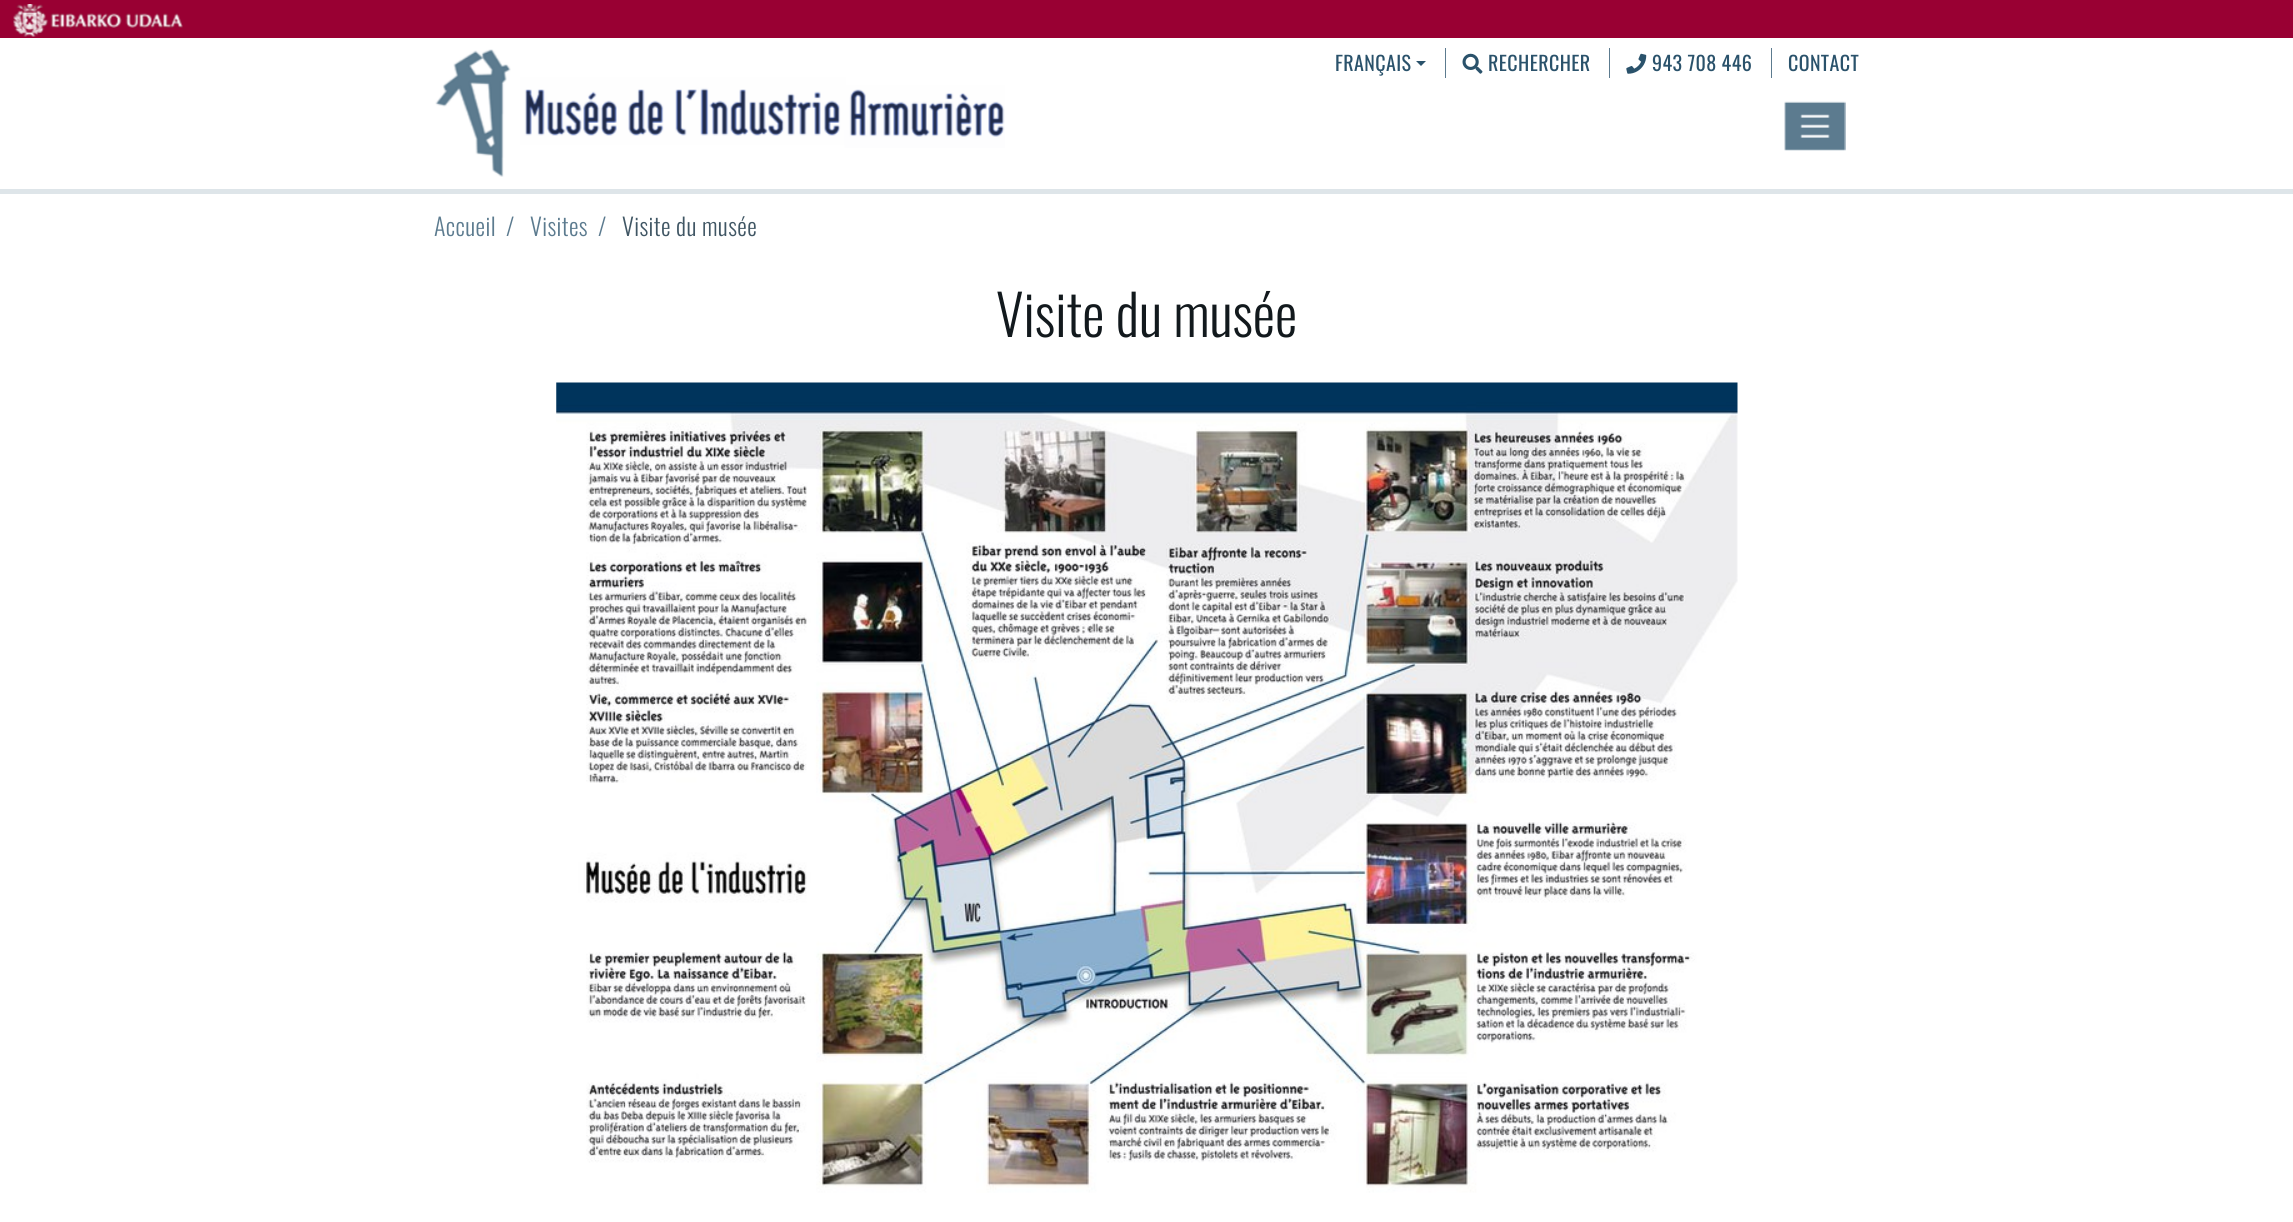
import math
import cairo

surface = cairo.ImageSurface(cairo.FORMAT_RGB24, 2293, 1222)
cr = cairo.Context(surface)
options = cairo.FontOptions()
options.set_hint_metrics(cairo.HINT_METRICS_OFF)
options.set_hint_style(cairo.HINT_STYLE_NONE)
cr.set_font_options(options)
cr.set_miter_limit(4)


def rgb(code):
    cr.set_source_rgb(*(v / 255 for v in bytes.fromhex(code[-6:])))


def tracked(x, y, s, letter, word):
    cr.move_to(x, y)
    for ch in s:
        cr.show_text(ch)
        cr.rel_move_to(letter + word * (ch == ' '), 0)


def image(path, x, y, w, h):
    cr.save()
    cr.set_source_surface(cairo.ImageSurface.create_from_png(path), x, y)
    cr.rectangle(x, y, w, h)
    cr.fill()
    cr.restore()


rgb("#ffffff")
cr.paint()
rgb("#dee5e9")
cr.rectangle(0, 189, 2293, 5)
cr.fill()
rgb("#990033")
cr.rectangle(0, 0, 2293, 38)
cr.fill()
image("img/1.png", 13, 4, 170, 33)
image("img/2.png", 435, 49, 570, 128)
rgb("#2a526b")
cr.new_path()
cr.move_to(1416, 61)
cr.line_to(1426, 61)
cr.line_to(1421, 66)
cr.close_path()
cr.fill()
rgb("#5c7b8f")
cr.rectangle(1445, 48, 1, 30)
cr.fill()
image("img/3.png", 1462, 53, 21, 21)
cr.rectangle(1609, 48, 1, 30)
cr.fill()
image("img/4.png", 1626, 53, 21, 21)
cr.rectangle(1771, 48, 1, 30)
cr.fill()
image("img/5.png", 1784, 101, 62, 50)
image("img/6.png", 556, 382, 1182, 811)
cr.select_font_face("Oswald")
cr.set_font_size(20)
rgb("#2a526b")
for x, y, s in [
    (1335, 71, "FRANÇAIS"),
    (1488, 71, "RECHERCHER"),
    (1652, 71, "943 708 446"),
    (1788, 71, "CONTACT"),
]:
    tracked(x, y, s, 0.4, 0)
cr.select_font_face("Oswald Light")
cr.set_font_size(24)
rgb("#5c7b8f")
for x, y, s in [
    (434, 236, "Accueil"),
    (506, 236, "/"),
    (530, 236, "Visites"),
    (598, 236, "/"),
]:
    tracked(x, y, s, 0.4, 0)
rgb("#405664")
tracked(622, 236, "Visite du musée", 0.4, 0)
cr.set_font_size(56)
rgb("#12191d")
cr.move_to(996, 337)
cr.show_text("Visite du musée")
surface.write_to_png("page.png")
